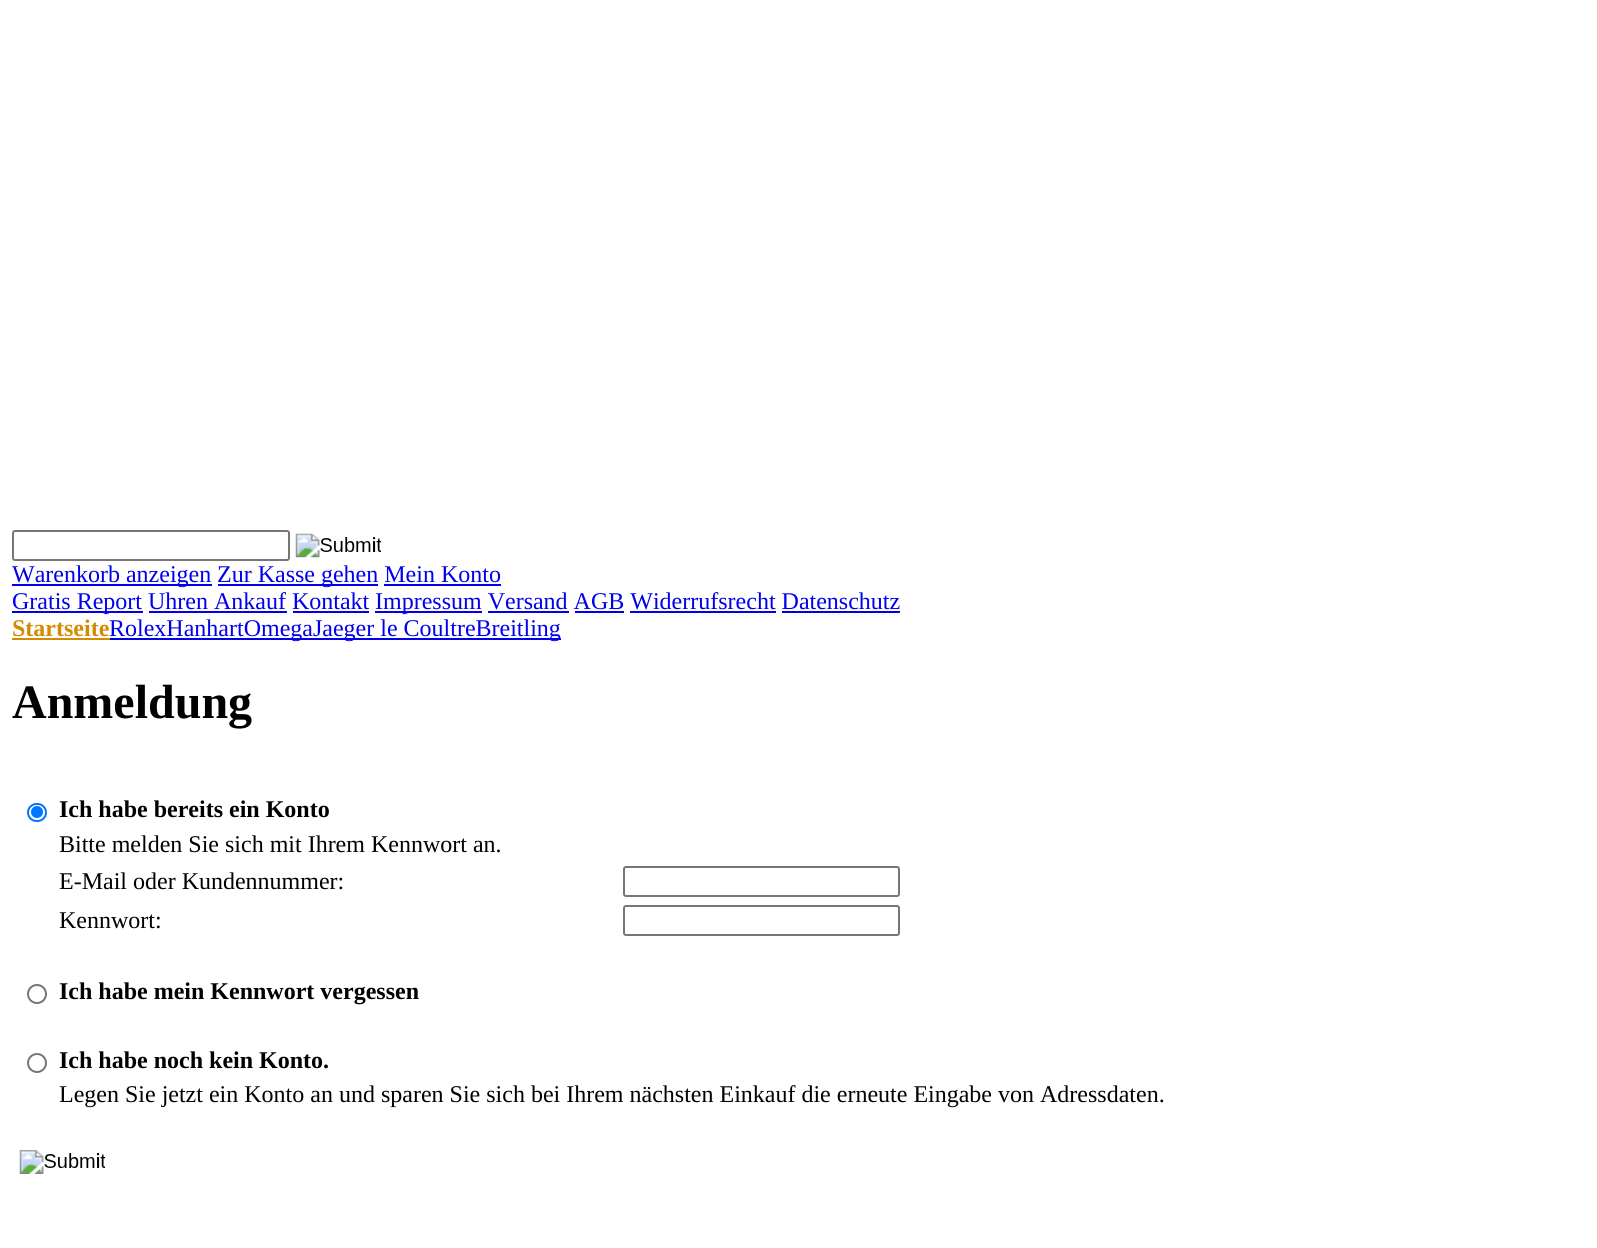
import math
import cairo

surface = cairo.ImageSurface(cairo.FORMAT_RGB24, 1597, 1248)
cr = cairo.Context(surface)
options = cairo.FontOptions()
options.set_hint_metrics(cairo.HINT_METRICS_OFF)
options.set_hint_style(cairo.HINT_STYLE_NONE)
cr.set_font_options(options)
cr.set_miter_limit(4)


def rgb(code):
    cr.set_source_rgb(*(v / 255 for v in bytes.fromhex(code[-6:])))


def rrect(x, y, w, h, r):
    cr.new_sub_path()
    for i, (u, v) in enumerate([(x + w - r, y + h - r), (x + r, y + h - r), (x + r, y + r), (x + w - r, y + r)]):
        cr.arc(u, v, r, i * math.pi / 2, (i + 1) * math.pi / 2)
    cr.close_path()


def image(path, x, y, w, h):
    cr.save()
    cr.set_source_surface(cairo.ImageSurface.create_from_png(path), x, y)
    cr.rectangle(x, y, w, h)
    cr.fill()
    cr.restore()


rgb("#ffffff")
cr.paint()
rrect(13, 531, 276, 29, 2)
rgb("#767676")
cr.stroke()
image("img/1.png", 295, 533, 86, 25)
for x, y, w, h, color in [
    (12, 584, 200, 2, "#0000ee"),
    (218, 584, 160, 2, "#0000ee"),
    (384, 584, 117, 2, "#0000ee"),
    (12, 611, 131, 2, "#0000ee"),
    (375, 611, 107, 2, "#0000ee"),
    (149, 611, 138, 2, "#0000ee"),
    (293, 611, 76, 2, "#0000ee"),
    (488, 611, 81, 2, "#0000ee"),
    (575, 611, 49, 2, "#0000ee"),
    (630, 611, 146, 2, "#0000ee"),
    (782, 611, 118, 2, "#0000ee"),
    (12, 638, 98, 2, "#d38b01"),
    (110, 638, 451, 2, "#0000ee"),
]:
    rgb(color)
    cr.rectangle(x, y, w, h)
    cr.fill()
rrect(28, 804, 18, 17, 8.5)
rgb("#0075ff")
cr.stroke()
cr.arc(37, 812, 6, 0, 2 * math.pi)
cr.fill()
rrect(624, 867, 275, 29, 2)
rgb("#767676")
cr.stroke()
rrect(624, 906, 275, 29, 2)
cr.stroke()
cr.arc(37, 994, 9, 0, 2 * math.pi)
cr.stroke()
cr.arc(37, 1063, 9, 0, 2 * math.pi)
cr.stroke()
image("img/2.png", 19, 1150, 86, 24)
cr.select_font_face("Liberation Sans")
cr.set_font_size(20)
rgb("#000000")
cr.move_to(372, 552)
cr.show_text("i")
cr.select_font_face("Liberation Serif")
cr.set_font_size(24)
rgb("#0000ee")
for x, y, s in [
    (12, 582, "Warenkorb anzeigen"),
    (217, 582, "Zur Kasse gehen Mein Konto"),
    (12, 609, "Gratis Report Uhren Ankauf Kontakt"),
    (375, 609, "Impressum Versand AGB Widerrufsrecht Datenschutz"),
]:
    cr.move_to(x, y)
    cr.show_text(s)
cr.select_font_face("Liberation Serif", cairo.FONT_SLANT_NORMAL, cairo.FONT_WEIGHT_BOLD)
rgb("#d38b01")
cr.move_to(12, 636)
cr.show_text("Startseite")
cr.select_font_face("Liberation Serif")
rgb("#0000ee")
cr.move_to(109, 636)
cr.show_text("RolexHanhartOmegaJaeger le CoultreBreitling")
cr.select_font_face("Liberation Serif", cairo.FONT_SLANT_NORMAL, cairo.FONT_WEIGHT_BOLD)
cr.set_font_size(48)
rgb("#000000")
cr.move_to(12, 718)
cr.show_text("Anmeldung")
cr.set_font_size(24)
cr.move_to(59, 817)
cr.show_text("Ich habe bereits ein Konto")
cr.select_font_face("Liberation Serif")
for x, y, s in [
    (59, 852, "Bitte melden Sie sich mit Ihrem Kennwort an."),
    (59, 889, "E-Mail oder Kundennummer:"),
    (59, 928, "Kennwort:"),
]:
    cr.move_to(x, y)
    cr.show_text(s)
cr.select_font_face("Liberation Serif", cairo.FONT_SLANT_NORMAL, cairo.FONT_WEIGHT_BOLD)
cr.move_to(59, 999)
cr.show_text("Ich habe mein Kennwort vergessen")
cr.move_to(59, 1068)
cr.show_text("Ich habe noch kein Konto.")
cr.select_font_face("Liberation Serif")
cr.move_to(59, 1102)
cr.show_text("Legen Sie jetzt ein Konto an und sparen Sie sich bei Ihrem nächsten Einkauf die erneute Eingabe von Adressdaten.")
cr.select_font_face("Liberation Sans")
cr.set_font_size(20)
cr.move_to(96, 1168)
cr.show_text("i")
surface.write_to_png("page.png")
